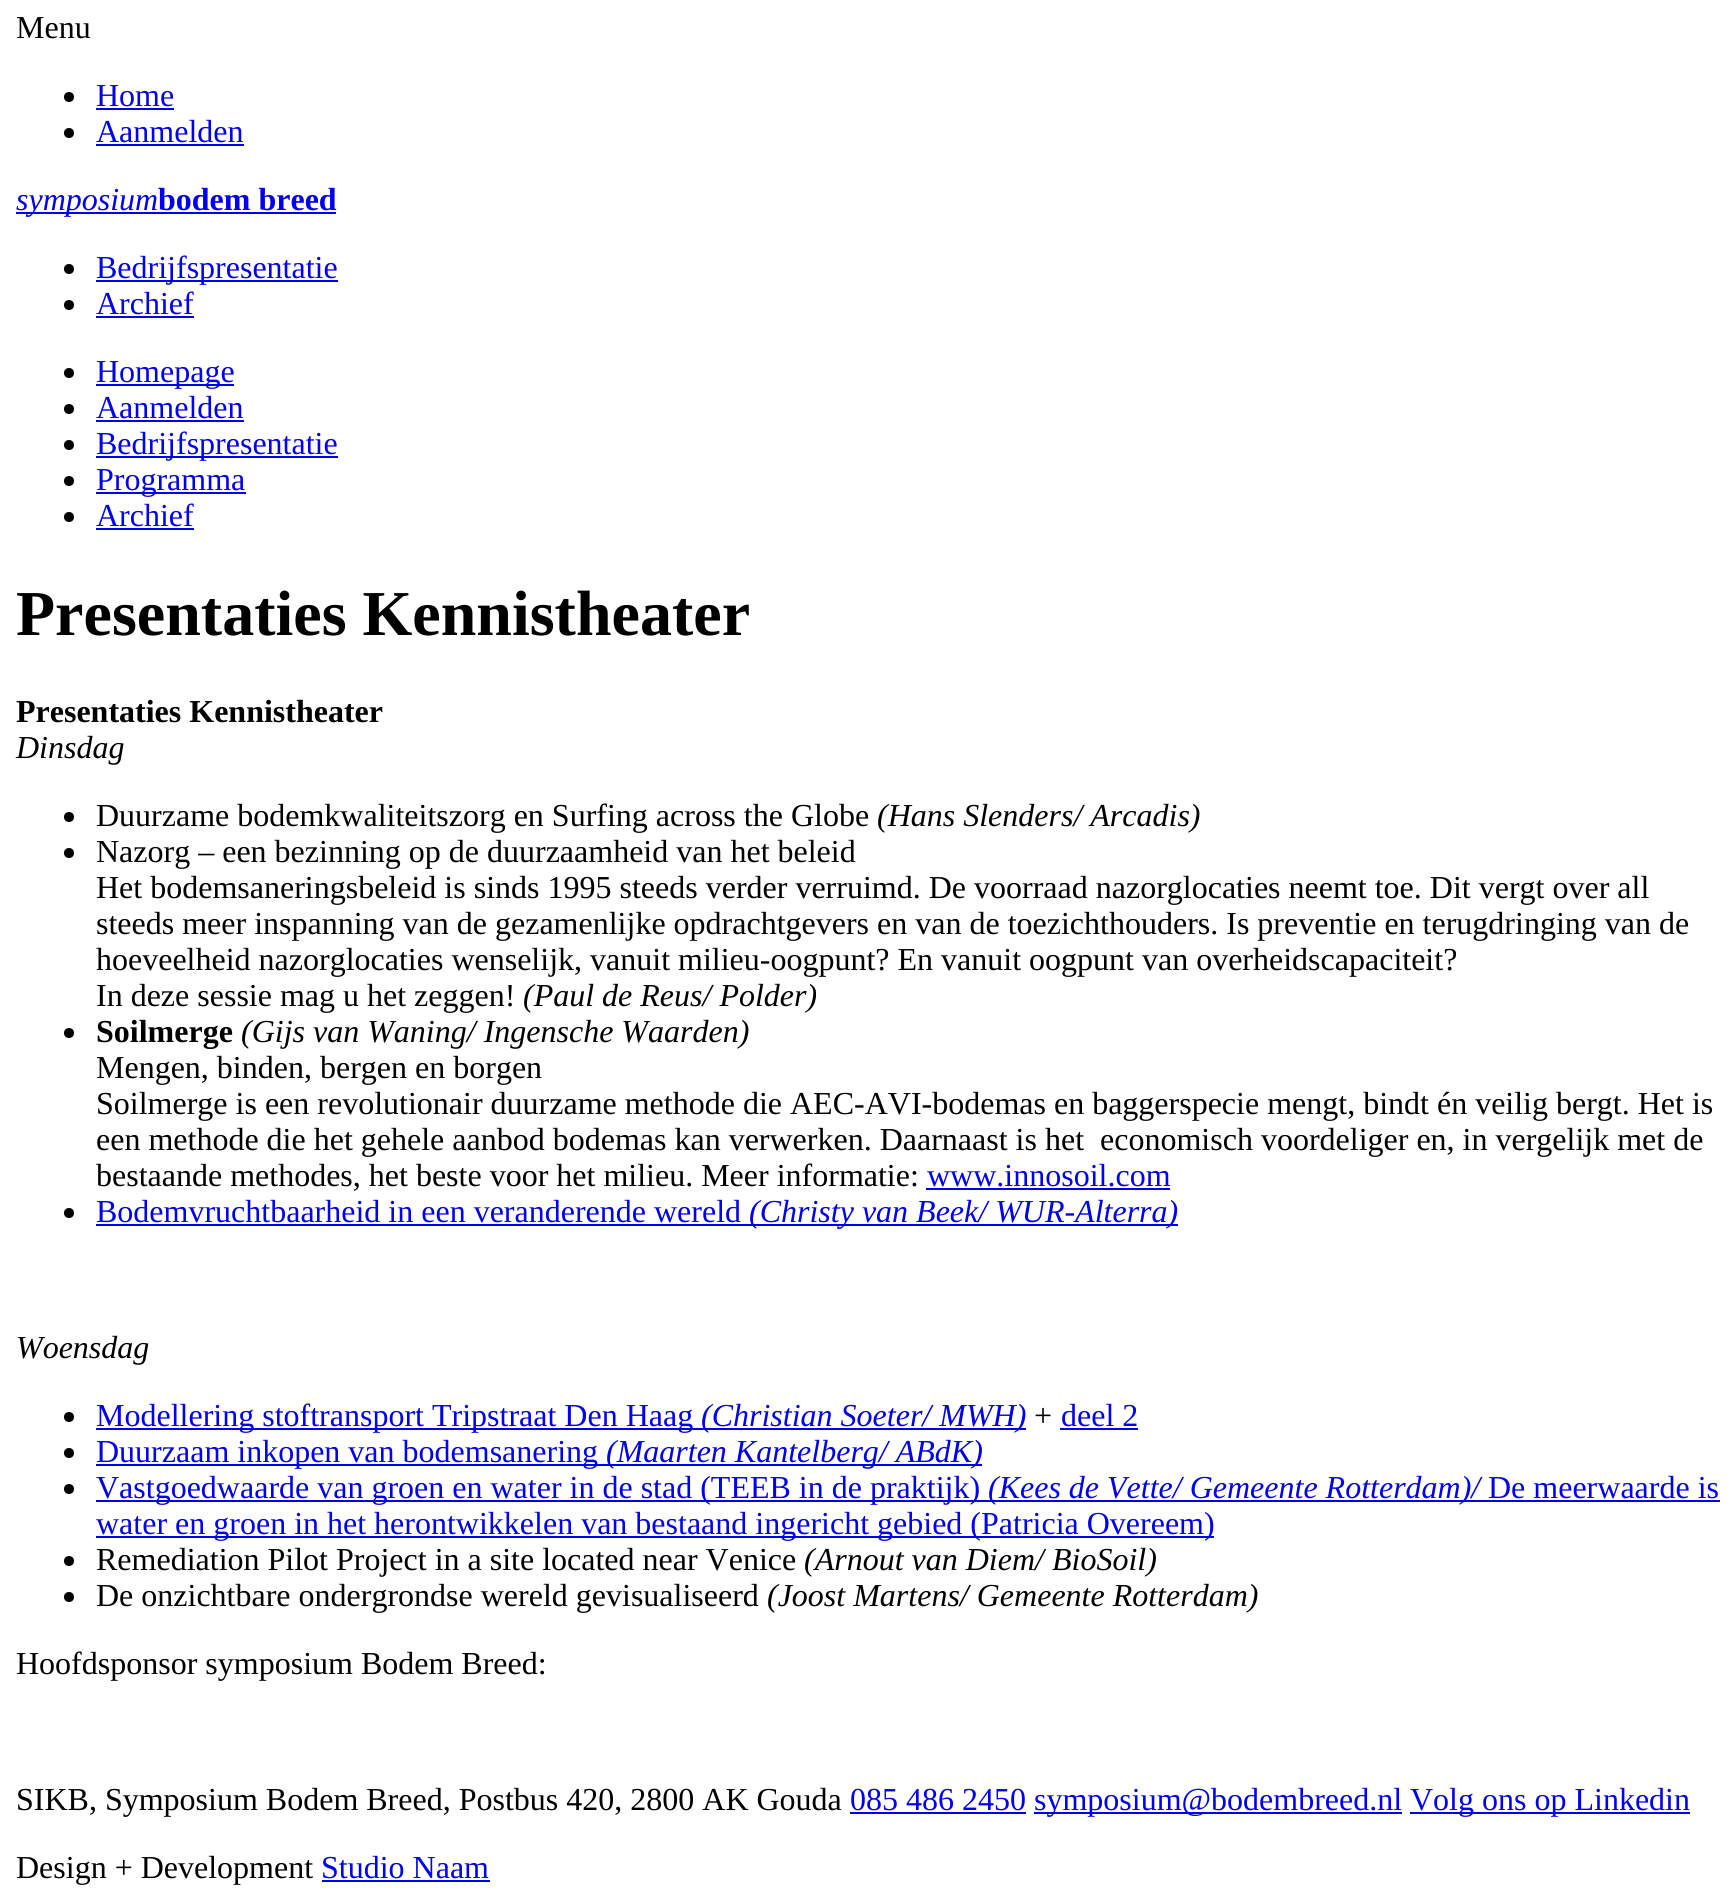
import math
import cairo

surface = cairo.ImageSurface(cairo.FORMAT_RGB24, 1735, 1893)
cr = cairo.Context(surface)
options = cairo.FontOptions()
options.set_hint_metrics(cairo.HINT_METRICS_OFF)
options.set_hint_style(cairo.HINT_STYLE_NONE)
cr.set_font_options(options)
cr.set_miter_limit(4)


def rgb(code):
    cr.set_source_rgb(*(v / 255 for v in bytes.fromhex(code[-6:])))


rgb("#ffffff")
cr.paint()
rgb("#000000")
cr.arc(69, 97, 5, 0, 2 * math.pi)
cr.fill()
rgb("#0000ee")
cr.rectangle(96, 108, 78, 2)
cr.fill()
rgb("#000000")
cr.arc(69, 133, 5, 0, 2 * math.pi)
cr.fill()
rgb("#0000ee")
cr.rectangle(96, 144, 148, 2)
cr.fill()
cr.rectangle(16, 212, 320, 2)
cr.fill()
rgb("#000000")
cr.arc(69, 269, 5, 0, 2 * math.pi)
cr.fill()
rgb("#0000ee")
cr.rectangle(96, 280, 242, 2)
cr.fill()
rgb("#000000")
cr.arc(69, 305, 5, 0, 2 * math.pi)
cr.fill()
rgb("#0000ee")
cr.rectangle(96, 316, 98, 2)
cr.fill()
rgb("#000000")
cr.arc(69, 373, 5, 0, 2 * math.pi)
cr.fill()
rgb("#0000ee")
cr.rectangle(96, 384, 138, 2)
cr.fill()
rgb("#000000")
cr.arc(69, 409, 5, 0, 2 * math.pi)
cr.fill()
rgb("#0000ee")
cr.rectangle(96, 420, 148, 2)
cr.fill()
rgb("#000000")
cr.arc(69, 445, 5, 0, 2 * math.pi)
cr.fill()
rgb("#0000ee")
cr.rectangle(96, 456, 242, 2)
cr.fill()
rgb("#000000")
cr.arc(69, 481, 5, 0, 2 * math.pi)
cr.fill()
rgb("#0000ee")
cr.rectangle(96, 492, 150, 2)
cr.fill()
rgb("#000000")
cr.arc(69, 517, 5, 0, 2 * math.pi)
cr.fill()
rgb("#0000ee")
cr.rectangle(96, 528, 98, 2)
cr.fill()
rgb("#000000")
cr.arc(69, 817, 5, 0, 2 * math.pi)
cr.fill()
cr.arc(69, 853, 5, 0, 2 * math.pi)
cr.fill()
cr.arc(69, 1033, 5, 0, 2 * math.pi)
cr.fill()
rgb("#0000ee")
cr.rectangle(926, 1188, 244, 2)
cr.fill()
rgb("#000000")
cr.arc(69, 1213, 5, 0, 2 * math.pi)
cr.fill()
rgb("#0000ee")
cr.rectangle(96, 1224, 1082, 2)
cr.fill()
rgb("#000000")
cr.arc(69, 1417, 5, 0, 2 * math.pi)
cr.fill()
rgb("#0000ee")
cr.rectangle(96, 1428, 930, 2)
cr.fill()
cr.rectangle(1060, 1428, 78, 2)
cr.fill()
rgb("#000000")
cr.arc(69, 1453, 5, 0, 2 * math.pi)
cr.fill()
rgb("#0000ee")
cr.rectangle(96, 1464, 886, 2)
cr.fill()
rgb("#000000")
cr.arc(69, 1489, 5, 0, 2 * math.pi)
cr.fill()
rgb("#0000ee")
cr.rectangle(96, 1500, 1624, 2)
cr.fill()
cr.rectangle(96, 1536, 1118, 2)
cr.fill()
rgb("#000000")
cr.arc(69, 1561, 5, 0, 2 * math.pi)
cr.fill()
cr.arc(69, 1597, 5, 0, 2 * math.pi)
cr.fill()
for x, y, w, h, color in [
    (850, 1812, 176, 2, "#0000ee"),
    (1034, 1812, 368, 2, "#0000ee"),
    (1410, 1812, 280, 2, "#0000ee"),
    (322, 1880, 168, 2, "#0000ee"),
]:
    rgb(color)
    cr.rectangle(x, y, w, h)
    cr.fill()
cr.select_font_face("Liberation Serif")
cr.set_font_size(32)
rgb("#000000")
cr.move_to(16, 38)
cr.show_text("Menu")
rgb("#0000ee")
cr.move_to(96, 106)
cr.show_text("Home")
cr.move_to(96, 142)
cr.show_text("Aanmelden")
cr.select_font_face("Liberation Serif", cairo.FONT_SLANT_ITALIC)
cr.move_to(16, 210)
cr.show_text("symposium")
cr.select_font_face("Liberation Serif", cairo.FONT_SLANT_NORMAL, cairo.FONT_WEIGHT_BOLD)
cr.move_to(158, 210)
cr.show_text("bodem breed")
cr.select_font_face("Liberation Serif")
for x, y, s in [
    (96, 278, "Bedrijfspresentatie"),
    (96, 314, "Archief"),
    (96, 382, "Homepage"),
    (96, 418, "Aanmelden"),
    (96, 454, "Bedrijfspresentatie"),
    (96, 490, "Programma"),
    (96, 526, "Archief"),
]:
    cr.move_to(x, y)
    cr.show_text(s)
cr.select_font_face("Liberation Serif", cairo.FONT_SLANT_NORMAL, cairo.FONT_WEIGHT_BOLD)
cr.set_font_size(64)
rgb("#000000")
cr.move_to(16, 635)
cr.show_text("Presentaties Kennistheater")
cr.set_font_size(32)
cr.move_to(16, 722)
cr.show_text("Presentaties Kennistheater")
cr.select_font_face("Liberation Serif", cairo.FONT_SLANT_ITALIC)
cr.move_to(16, 758)
cr.show_text("Dinsdag")
cr.select_font_face("Liberation Serif")
cr.move_to(96, 826)
cr.show_text("Duurzame bodemkwaliteitszorg en Surfing across the Globe")
cr.select_font_face("Liberation Serif", cairo.FONT_SLANT_ITALIC)
cr.move_to(877, 826)
cr.show_text("(Hans Slenders/ Arcadis)")
cr.select_font_face("Liberation Serif")
for x, y, s in [
    (96, 862, "Nazorg – een bezinning op de duurzaamheid van het beleid"),
    (96, 898, "Het bodemsaneringsbeleid is sinds 1995 steeds verder verruimd. De voorraad nazorglocaties neemt toe. Dit vergt over all"),
    (96, 934, "steeds meer inspanning van de gezamenlijke opdrachtgevers en van de toezichthouders. Is preventie en terugdringing van de"),
    (96, 970, "hoeveelheid nazorglocaties wenselijk, vanuit milieu-oogpunt? En vanuit oogpunt van overheidscapaciteit?"),
    (96, 1006, "In deze sessie mag u het zeggen!"),
]:
    cr.move_to(x, y)
    cr.show_text(s)
cr.select_font_face("Liberation Serif", cairo.FONT_SLANT_ITALIC)
cr.move_to(523, 1006)
cr.show_text("(Paul de Reus/ Polder)")
cr.select_font_face("Liberation Serif", cairo.FONT_SLANT_NORMAL, cairo.FONT_WEIGHT_BOLD)
cr.move_to(96, 1042)
cr.show_text("Soilmerge")
cr.select_font_face("Liberation Serif", cairo.FONT_SLANT_ITALIC)
cr.move_to(241, 1042)
cr.show_text("(Gijs van Waning/ Ingensche Waarden)")
cr.select_font_face("Liberation Serif")
for x, y, s in [
    (96, 1078, "Mengen, binden, bergen en borgen"),
    (96, 1114, "Soilmerge is een revolutionair duurzame methode die AEC-AVI-bodemas en baggerspecie mengt, bindt én veilig bergt. Het is"),
    (96, 1150, "een methode die het gehele aanbod bodemas kan verwerken. Daarnaast is het  economisch voordeliger en, in vergelijk met de"),
    (96, 1186, "bestaande methodes, het beste voor het milieu. Meer informatie:"),
]:
    cr.move_to(x, y)
    cr.show_text(s)
rgb("#0000ee")
cr.move_to(927, 1186)
cr.show_text("www.innosoil.com")
cr.move_to(96, 1222)
cr.show_text("Bodemvruchtbaarheid in een veranderende wereld")
cr.select_font_face("Liberation Serif", cairo.FONT_SLANT_ITALIC)
cr.move_to(749, 1222)
cr.show_text("(Christy van Beek/ WUR-Alterra)")
rgb("#000000")
cr.move_to(16, 1358)
cr.show_text("Woensdag")
cr.select_font_face("Liberation Serif")
rgb("#0000ee")
cr.move_to(96, 1426)
cr.show_text("Modellering stoftransport Tripstraat Den Haag")
cr.select_font_face("Liberation Serif", cairo.FONT_SLANT_ITALIC)
cr.move_to(701, 1426)
cr.show_text("(Christian Soeter/ MWH)")
cr.select_font_face("Liberation Serif")
rgb("#000000")
cr.move_to(1034, 1426)
cr.show_text("+")
rgb("#0000ee")
cr.move_to(1061, 1426)
cr.show_text("deel 2")
cr.move_to(96, 1462)
cr.show_text("Duurzaam inkopen van bodemsanering")
cr.select_font_face("Liberation Serif", cairo.FONT_SLANT_ITALIC)
cr.move_to(606, 1462)
cr.show_text("(Maarten Kantelberg/ ABdK)")
cr.select_font_face("Liberation Serif")
cr.move_to(96, 1498)
cr.show_text("Vastgoedwaarde van groen en water in de stad (TEEB in de praktijk)")
cr.select_font_face("Liberation Serif", cairo.FONT_SLANT_ITALIC)
cr.move_to(988, 1498)
cr.show_text("(Kees de Vette/ Gemeente Rotterdam)/")
cr.select_font_face("Liberation Serif")
cr.move_to(1488, 1498)
cr.show_text("De meerwaarde is")
cr.move_to(96, 1534)
cr.show_text("water en groen in het herontwikkelen van bestaand ingericht gebied (Patricia Overeem)")
rgb("#000000")
cr.move_to(96, 1570)
cr.show_text("Remediation Pilot Project in a site located near Venice")
cr.select_font_face("Liberation Serif", cairo.FONT_SLANT_ITALIC)
cr.move_to(804, 1570)
cr.show_text("(Arnout van Diem/ BioSoil)")
cr.select_font_face("Liberation Serif")
cr.move_to(96, 1606)
cr.show_text("De onzichtbare ondergrondse wereld gevisualiseerd")
cr.select_font_face("Liberation Serif", cairo.FONT_SLANT_ITALIC)
cr.move_to(767, 1606)
cr.show_text("(Joost Martens/ Gemeente Rotterdam)")
cr.select_font_face("Liberation Serif")
cr.move_to(16, 1674)
cr.show_text("Hoofdsponsor symposium Bodem Breed:")
cr.move_to(16, 1810)
cr.show_text("SIKB, Symposium Bodem Breed, Postbus 420, 2800 AK Gouda")
rgb("#0000ee")
for x, y, s in [
    (850, 1810, "085 486 2450"),
    (1034, 1810, "symposium@bodembreed.nl"),
    (1410, 1810, "Volg ons op Linkedin"),
]:
    cr.move_to(x, y)
    cr.show_text(s)
rgb("#000000")
cr.move_to(16, 1878)
cr.show_text("Design + Development")
rgb("#0000ee")
cr.move_to(321, 1878)
cr.show_text("Studio Naam")
surface.write_to_png("page.png")
